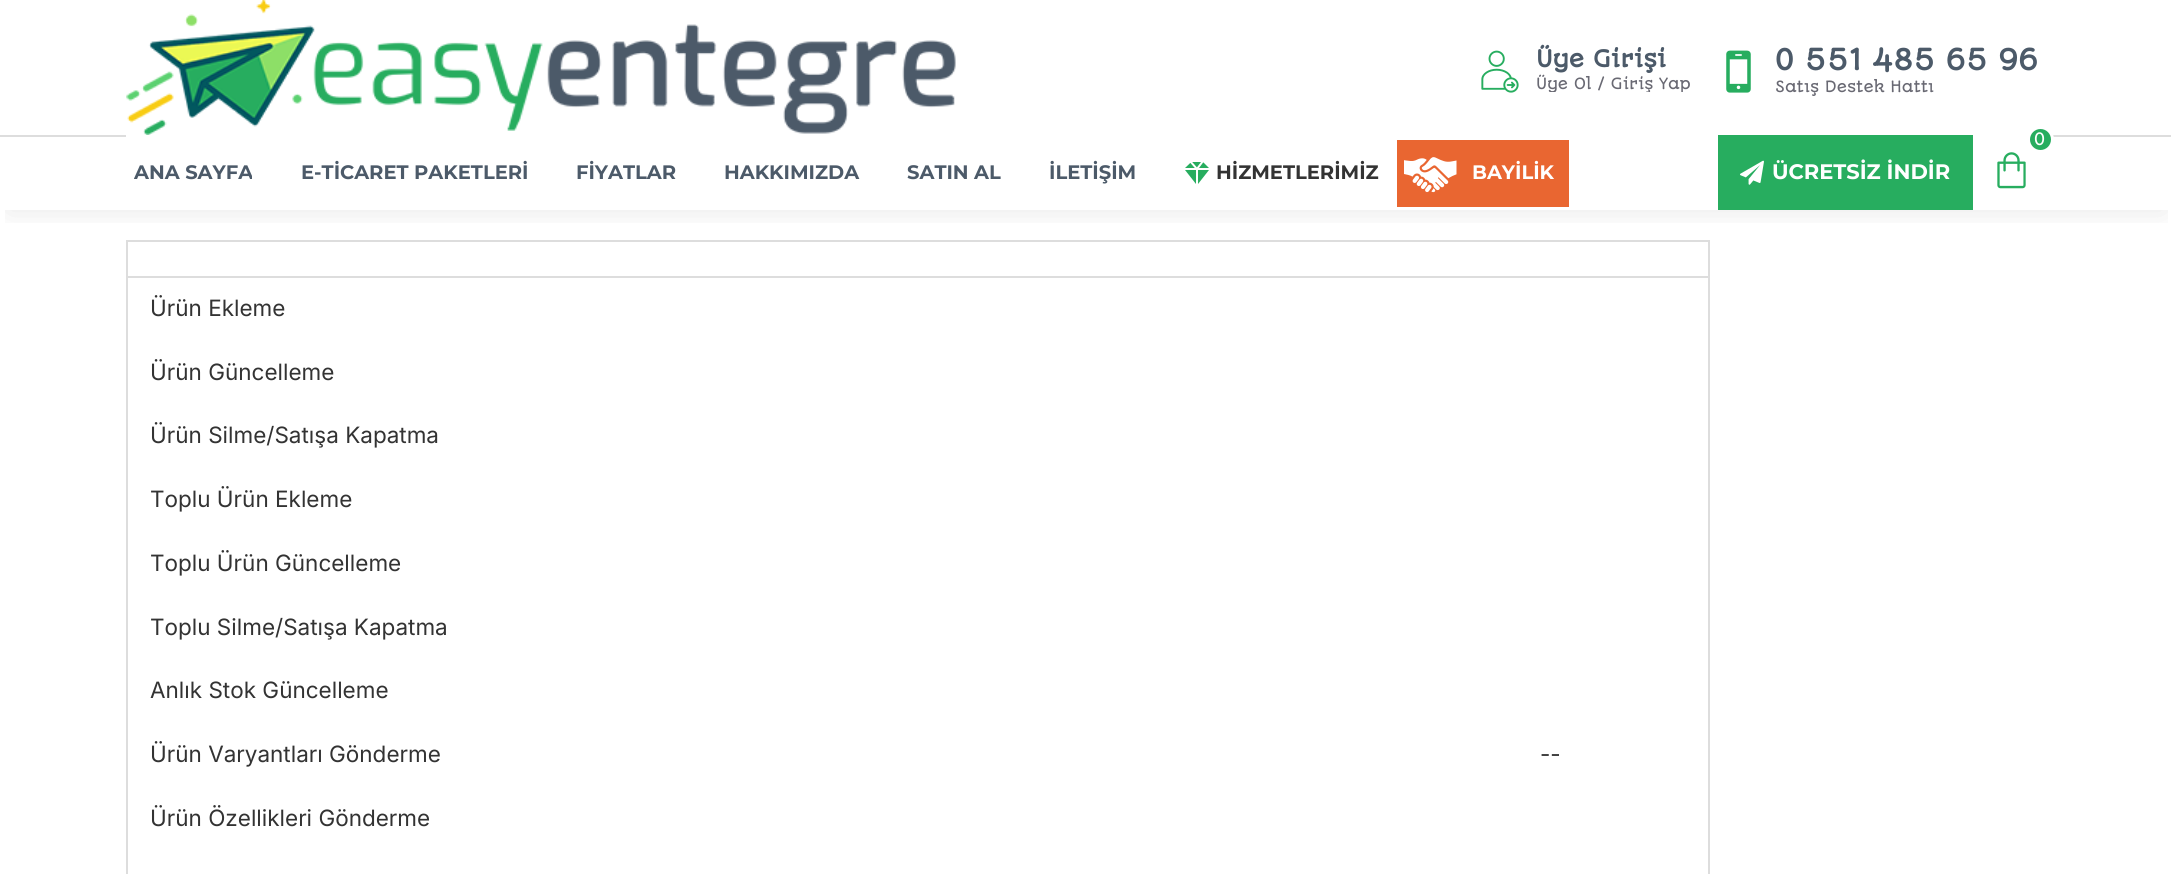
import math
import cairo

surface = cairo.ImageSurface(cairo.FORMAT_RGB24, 2171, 874)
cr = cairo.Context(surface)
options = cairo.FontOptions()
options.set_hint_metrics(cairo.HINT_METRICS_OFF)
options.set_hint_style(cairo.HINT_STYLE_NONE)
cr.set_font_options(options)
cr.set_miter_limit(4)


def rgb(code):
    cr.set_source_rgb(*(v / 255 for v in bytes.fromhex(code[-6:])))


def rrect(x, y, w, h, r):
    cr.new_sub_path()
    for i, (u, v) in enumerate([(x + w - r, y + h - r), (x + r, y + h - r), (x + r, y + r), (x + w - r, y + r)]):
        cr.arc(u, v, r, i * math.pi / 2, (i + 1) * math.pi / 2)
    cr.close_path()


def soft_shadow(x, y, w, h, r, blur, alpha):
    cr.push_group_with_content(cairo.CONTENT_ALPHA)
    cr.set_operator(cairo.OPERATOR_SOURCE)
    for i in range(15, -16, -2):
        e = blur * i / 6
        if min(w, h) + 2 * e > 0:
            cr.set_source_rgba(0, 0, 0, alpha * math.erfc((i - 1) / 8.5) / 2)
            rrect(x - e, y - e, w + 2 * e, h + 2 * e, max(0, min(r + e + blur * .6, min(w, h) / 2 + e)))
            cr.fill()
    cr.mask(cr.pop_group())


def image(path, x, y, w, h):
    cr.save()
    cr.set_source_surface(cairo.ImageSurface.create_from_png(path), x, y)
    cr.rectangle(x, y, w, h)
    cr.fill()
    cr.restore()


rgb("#ffffff")
cr.paint()
cr.rectangle(127, 241, 1582, 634)
rgb("#dddddd")
cr.stroke()
cr.save()
cr.rectangle(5, 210, 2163, 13)
cr.clip()
rgb("#000000")
soft_shadow(8, 15, 2157, 195, 0, 15, 0.1)
cr.restore()
image("img/1.png", 126, 0, 830, 135)
image("img/2.png", 1481, 50, 38, 43)
image("img/3.png", 1726, 50, 25, 43)
cr.rectangle(0, 135, 2171, 2)
cr.fill()
rgb("#ffffff")
cr.rectangle(126, 135, 1920, 2)
cr.fill()
rgb("#27ad5f")
cr.arc(2040.5, 139.5, 12, 0, 2 * math.pi)
cr.fill_preserve()
rgb("#ffffff")
cr.set_line_width(3)
cr.stroke()
image("img/4.png", 1997, 152, 29, 37)
image("img/5.png", 1185, 162, 24, 22)
rgb("#e96631")
cr.rectangle(1397, 140, 172, 67)
cr.fill()
image("img/6.png", 1404, 157, 53, 36)
rgb("#27ad5f")
cr.rectangle(1718, 135, 255, 75)
cr.fill()
image("img/7.png", 1740, 160, 24, 25)
rgb("#dddddd")
cr.rectangle(128, 276, 1581, 2)
cr.fill()
cr.select_font_face("Autour One", cairo.FONT_SLANT_NORMAL, cairo.FONT_WEIGHT_BOLD)
cr.set_font_size(22.5)
rgb("#4c5a69")
cr.move_to(1536, 67)
cr.show_text("Üye Girişi")
cr.save()
cr.rectangle(1536, 44, 155, 48)
cr.clip()
cr.select_font_face("Autour One")
cr.set_font_size(15)
rgb("#696973")
cr.move_to(1536, 89)
cr.show_text("Üye Ol / Giriş Yap")
cr.restore()
cr.set_font_size(27)
cr.move_to(1775, 70)
cr.show_text("0 551 485 65 96")
cr.select_font_face("Autour One")
cr.set_font_size(15)
rgb("#696973")
cr.move_to(1775, 92)
cr.show_text("Satış Destek Hattı")
cr.set_font_size(16)
rgb("#ffffff")
cr.move_to(2034, 145)
cr.show_text("0")
cr.save()
cr.rectangle(134, 158, 118, 30)
cr.clip()
cr.select_font_face("Montserrat", cairo.FONT_SLANT_NORMAL, cairo.FONT_WEIGHT_BOLD)
cr.set_font_size(19.5)
rgb("#4c5a69")
cr.move_to(134, 179)
cr.show_text("ANA SAYFA")
cr.restore()
cr.select_font_face("Montserrat", cairo.FONT_SLANT_NORMAL, cairo.FONT_WEIGHT_BOLD)
cr.set_font_size(19.5)
rgb("#4c5a69")
for x, y, s in [
    (301, 179, "E-TİCARET PAKETLERİ"),
    (576, 179, "FİYATLAR"),
    (724, 179, "HAKKIMIZDA"),
    (907, 179, "SATIN AL"),
    (1049, 179, "İLETİŞİM"),
]:
    cr.move_to(x, y)
    cr.show_text(s)
rgb("#333333")
cr.move_to(1216, 179)
cr.show_text("HİZMETLERİMİZ")
rgb("#ffffff")
cr.move_to(1472, 179)
cr.show_text("BAYİLİK")
cr.set_font_size(21)
cr.move_to(1772, 179)
cr.show_text("ÜCRETSİZ İNDİR")
cr.select_font_face("Inter")
cr.set_font_size(22.5)
rgb("#333333")
for x, y, s in [
    (150, 316, "Ürün Ekleme"),
    (150, 380, "Ürün Güncelleme"),
    (150, 443, "Ürün Silme/Satışa Kapatma"),
    (150, 507, "Toplu Ürün Ekleme"),
    (150, 571, "Toplu Ürün Güncelleme"),
    (150, 635, "Toplu Silme/Satışa Kapatma"),
    (150, 698, "Anlık Stok Güncelleme"),
    (150, 762, "Ürün Varyantları Gönderme"),
    (1540, 762, "--"),
    (150, 826, "Ürün Özellikleri Gönderme"),
]:
    cr.move_to(x, y)
    cr.show_text(s)
surface.write_to_png("page.png")
